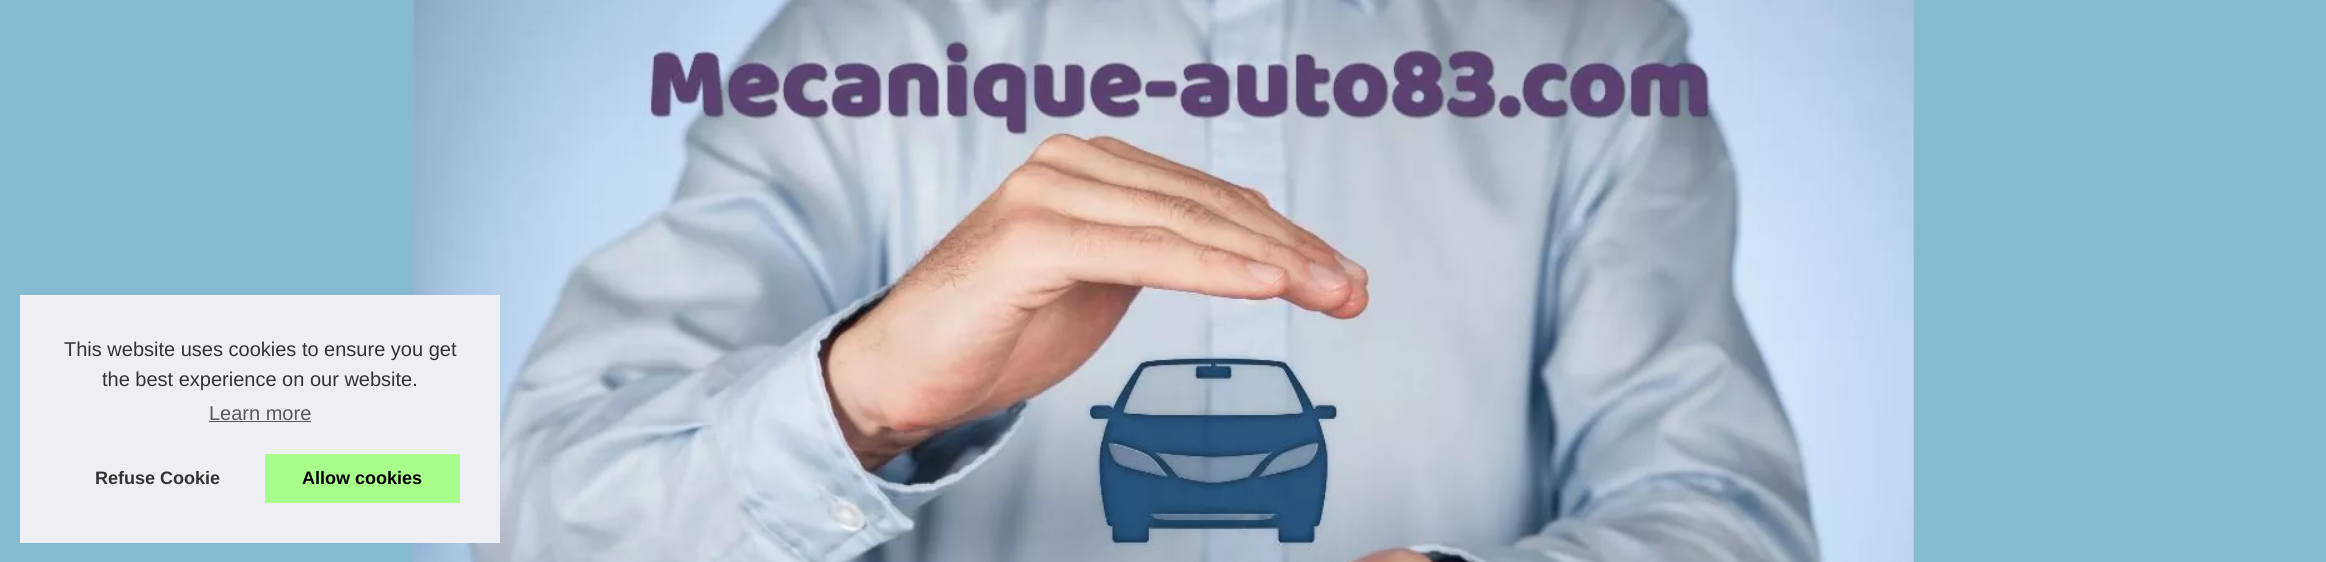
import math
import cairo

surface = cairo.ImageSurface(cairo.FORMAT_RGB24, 2326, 562)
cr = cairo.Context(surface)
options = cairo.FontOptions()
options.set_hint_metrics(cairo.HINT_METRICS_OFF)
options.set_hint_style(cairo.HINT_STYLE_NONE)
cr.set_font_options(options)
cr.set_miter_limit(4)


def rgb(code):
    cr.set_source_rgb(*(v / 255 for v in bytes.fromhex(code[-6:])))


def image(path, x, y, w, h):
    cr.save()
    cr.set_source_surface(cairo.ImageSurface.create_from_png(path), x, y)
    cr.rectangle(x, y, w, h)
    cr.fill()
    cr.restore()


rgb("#85bad3")
cr.paint()
image("img/1.png", 413, 0, 1501, 562)
for x, y, w, h, color in [
    (20, 295, 480, 248, "#edeff5"),
    (209, 421, 102, 1, "#58595a"),
    (265, 454, 195, 49, "#a8ff8c"),
]:
    rgb(color)
    cr.rectangle(x, y, w, h)
    cr.fill()
cr.select_font_face("Liberation Sans")
cr.set_font_size(20)
rgb("#333333")
cr.move_to(64, 356)
cr.show_text("This website uses cookies to ensure you get")
cr.move_to(102, 386)
cr.show_text("the best experience on our website.")
rgb("#58595a")
cr.move_to(209, 420)
cr.show_text("Learn more")
cr.select_font_face("Liberation Sans", cairo.FONT_SLANT_NORMAL, cairo.FONT_WEIGHT_BOLD)
cr.set_font_size(18)
rgb("#333333")
cr.move_to(95, 484)
cr.show_text("Refuse Cookie")
rgb("#000000")
cr.move_to(302, 484)
cr.show_text("Allow cookies")
surface.write_to_png("page.png")
